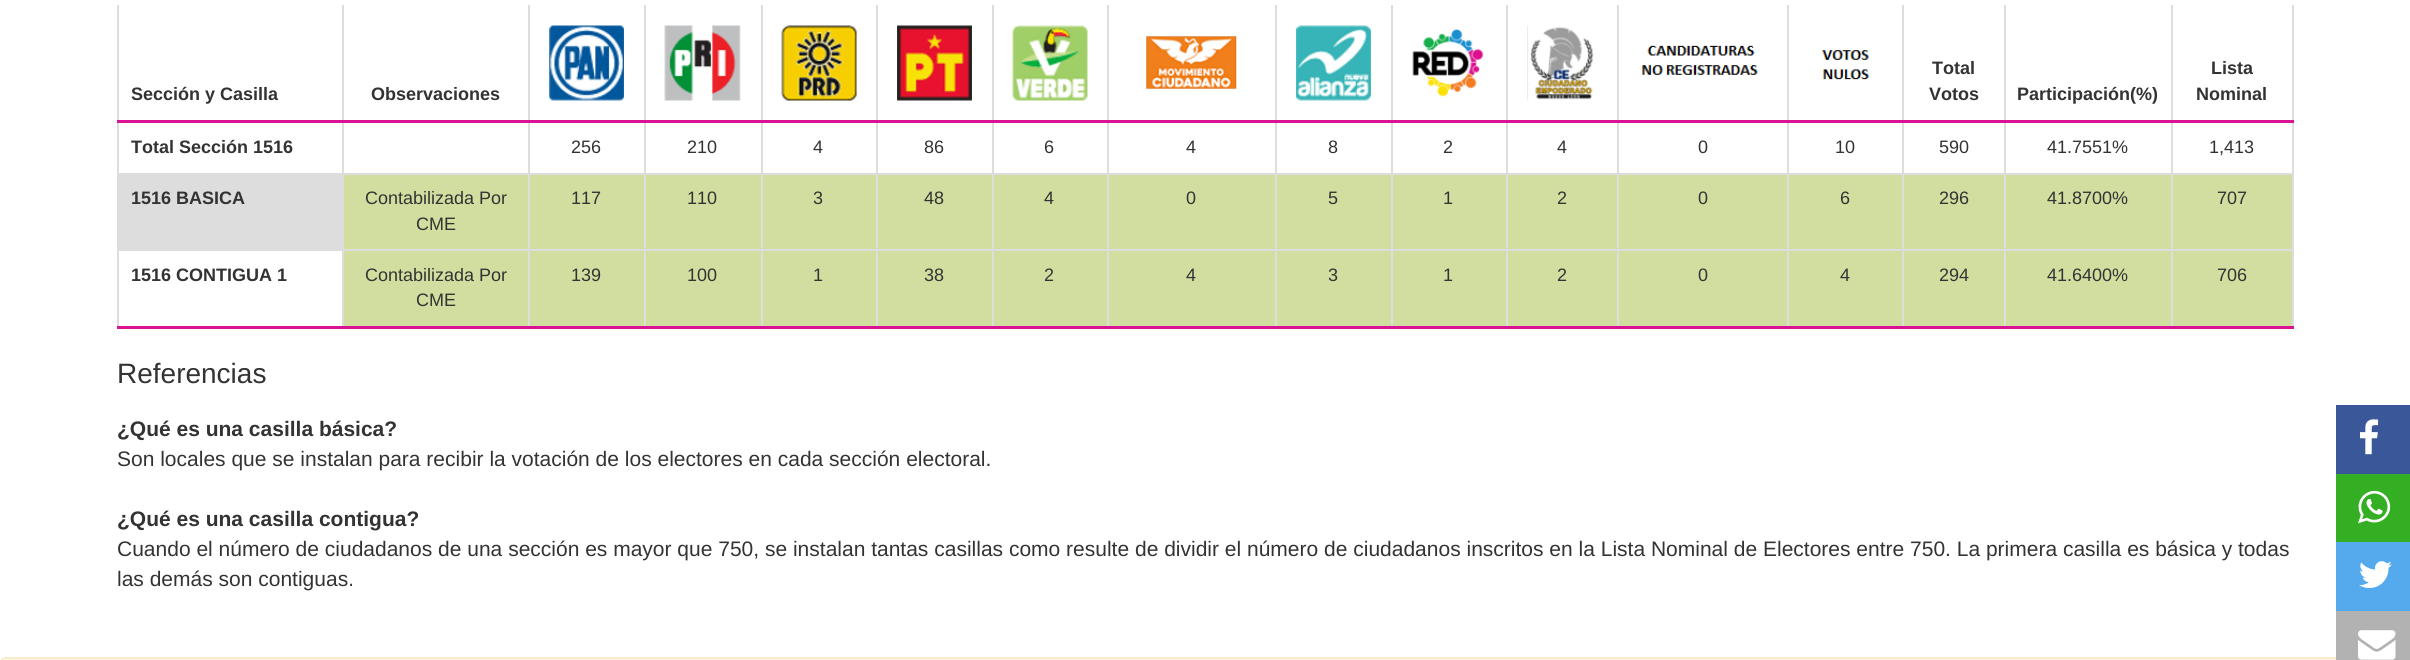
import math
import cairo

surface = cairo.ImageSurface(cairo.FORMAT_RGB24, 2410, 660)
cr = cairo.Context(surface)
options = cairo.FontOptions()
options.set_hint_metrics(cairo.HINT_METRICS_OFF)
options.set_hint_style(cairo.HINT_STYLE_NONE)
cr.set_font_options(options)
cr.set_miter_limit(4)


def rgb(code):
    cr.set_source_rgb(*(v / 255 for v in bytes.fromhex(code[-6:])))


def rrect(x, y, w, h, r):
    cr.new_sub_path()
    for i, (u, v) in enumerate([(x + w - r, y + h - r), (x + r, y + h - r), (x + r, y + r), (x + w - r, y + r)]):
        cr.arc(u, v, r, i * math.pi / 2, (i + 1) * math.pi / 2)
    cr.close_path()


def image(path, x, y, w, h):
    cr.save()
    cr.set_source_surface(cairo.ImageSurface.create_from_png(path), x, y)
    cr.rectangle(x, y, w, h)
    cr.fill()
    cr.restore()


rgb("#ffffff")
cr.paint()
image("img/1.png", 549, 25, 75, 76)
image("img/2.png", 664, 25, 77, 76)
image("img/3.png", 781, 25, 76, 76)
image("img/4.png", 897, 25, 75, 76)
image("img/5.png", 1012, 25, 76, 76)
image("img/6.png", 1146, 36, 91, 53)
image("img/7.png", 1296, 25, 75, 76)
image("img/8.png", 1412, 28, 72, 69)
image("img/9.png", 1527, 25, 67, 76)
image("img/10.png", 1641, 45, 117, 30)
image("img/11.png", 1822, 50, 47, 30)
for x, y, w, h, color in [
    (2171, 173, 123, 2, "#dddddd"),
    (2171, 249, 123, 2, "#dddddd"),
    (2171, 249, 2, 80, "#dddddd"),
    (2004, 249, 168, 2, "#dddddd"),
    (2171, 173, 2, 78, "#dddddd"),
    (2004, 173, 168, 2, "#dddddd"),
    (2004, 249, 2, 80, "#dddddd"),
    (1902, 249, 104, 2, "#dddddd"),
    (2004, 173, 2, 78, "#dddddd"),
    (1902, 173, 104, 2, "#dddddd"),
    (1902, 249, 2, 80, "#dddddd"),
    (1787, 249, 117, 2, "#dddddd"),
    (1902, 173, 2, 78, "#dddddd"),
    (1787, 173, 117, 2, "#dddddd"),
    (1787, 249, 2, 80, "#dddddd"),
    (1617, 249, 171, 2, "#dddddd"),
    (1787, 173, 2, 78, "#dddddd"),
    (1617, 173, 171, 2, "#dddddd"),
    (1617, 249, 2, 80, "#dddddd"),
    (1506, 249, 113, 2, "#dddddd"),
    (1617, 173, 2, 78, "#dddddd"),
    (1506, 173, 113, 2, "#dddddd"),
    (1506, 249, 2, 80, "#dddddd"),
    (1391, 249, 117, 2, "#dddddd"),
    (1506, 173, 2, 78, "#dddddd"),
    (1391, 173, 117, 2, "#dddddd"),
    (1391, 249, 2, 80, "#dddddd"),
    (1275, 249, 117, 2, "#dddddd"),
    (1391, 173, 2, 78, "#dddddd"),
    (1275, 173, 117, 2, "#dddddd"),
    (1275, 249, 2, 80, "#dddddd"),
    (1107, 249, 170, 2, "#dddddd"),
    (1275, 173, 2, 78, "#dddddd"),
    (1107, 173, 170, 2, "#dddddd"),
    (1107, 249, 2, 80, "#dddddd"),
    (992, 249, 117, 2, "#dddddd"),
    (1107, 173, 2, 78, "#dddddd"),
    (992, 173, 117, 2, "#dddddd"),
    (992, 249, 2, 80, "#dddddd"),
    (876, 249, 117, 2, "#dddddd"),
    (992, 173, 2, 78, "#dddddd"),
    (876, 173, 117, 2, "#dddddd"),
    (876, 249, 2, 80, "#dddddd"),
    (761, 249, 117, 2, "#dddddd"),
    (876, 173, 2, 78, "#dddddd"),
    (761, 173, 117, 2, "#dddddd"),
    (761, 249, 2, 80, "#dddddd"),
    (644, 249, 118, 2, "#dddddd"),
    (761, 173, 2, 78, "#dddddd"),
    (644, 173, 118, 2, "#dddddd"),
    (644, 249, 2, 80, "#dddddd"),
    (528, 249, 117, 2, "#dddddd"),
    (644, 173, 2, 78, "#dddddd"),
    (528, 173, 117, 2, "#dddddd"),
    (528, 249, 2, 80, "#dddddd"),
    (342, 249, 188, 2, "#dddddd"),
    (528, 173, 2, 78, "#dddddd"),
    (117, 173, 413, 2, "#dddddd"),
    (342, 5, 2, 169, "#dddddd"),
    (528, 5, 2, 169, "#dddddd"),
    (644, 5, 2, 169, "#dddddd"),
    (761, 5, 2, 169, "#dddddd"),
    (876, 5, 2, 169, "#dddddd"),
    (992, 5, 2, 169, "#dddddd"),
    (1107, 5, 2, 169, "#dddddd"),
    (1275, 5, 2, 169, "#dddddd"),
    (1391, 5, 2, 169, "#dddddd"),
    (1506, 5, 2, 169, "#dddddd"),
    (1617, 5, 2, 169, "#dddddd"),
    (1787, 5, 2, 169, "#dddddd"),
    (1902, 5, 2, 169, "#dddddd"),
    (2004, 5, 2, 169, "#dddddd"),
    (2171, 5, 2, 169, "#dddddd"),
    (342, 249, 2, 80, "#dddddd"),
    (117, 249, 227, 2, "#dddddd"),
    (117, 249, 2, 80, "#dddddd"),
    (117, 5, 2, 246, "#dddddd"),
    (2292, 249, 2, 80, "#dddddd"),
    (2292, 5, 2, 246, "#dddddd"),
    (117, 120, 2177, 3, "#d91394"),
    (119, 175, 225, 74, "#dddddd"),
    (344, 175, 184, 74, "#d1dea0"),
    (530, 175, 114, 74, "#d1dea0"),
    (646, 175, 115, 74, "#d1dea0"),
    (763, 175, 113, 74, "#d1dea0"),
    (878, 175, 114, 74, "#d1dea0"),
    (994, 175, 113, 74, "#d1dea0"),
    (1109, 175, 166, 74, "#d1dea0"),
    (1277, 175, 114, 74, "#d1dea0"),
    (1393, 175, 113, 74, "#d1dea0"),
    (1508, 175, 109, 74, "#d1dea0"),
    (1619, 175, 168, 74, "#d1dea0"),
    (1789, 175, 113, 74, "#d1dea0"),
    (1904, 175, 100, 74, "#d1dea0"),
    (2006, 175, 165, 74, "#d1dea0"),
    (2173, 175, 119, 74, "#d1dea0"),
    (117, 326, 2177, 3, "#d91394"),
    (344, 251, 184, 75, "#d1dea0"),
    (530, 251, 114, 75, "#d1dea0"),
    (646, 251, 115, 75, "#d1dea0"),
    (763, 251, 113, 75, "#d1dea0"),
    (878, 251, 114, 75, "#d1dea0"),
    (994, 251, 113, 75, "#d1dea0"),
    (1109, 251, 166, 75, "#d1dea0"),
    (1277, 251, 114, 75, "#d1dea0"),
    (1393, 251, 113, 75, "#d1dea0"),
    (1508, 251, 109, 75, "#d1dea0"),
    (1619, 251, 168, 75, "#d1dea0"),
    (1789, 251, 113, 75, "#d1dea0"),
    (1904, 251, 100, 75, "#d1dea0"),
    (2006, 251, 165, 75, "#d1dea0"),
    (2173, 251, 119, 75, "#d1dea0"),
    (2336, 405, 74, 69, "#3a5899"),
]:
    rgb(color)
    cr.rectangle(x, y, w, h)
    cr.fill()
image("img/12.png", 2360, 419, 19, 36)
rgb("#34af23")
cr.rectangle(2336, 474, 74, 68)
cr.fill()
image("img/13.png", 2358, 490, 33, 34)
rgb("#54aaed")
cr.rectangle(2336, 542, 74, 69)
cr.fill()
image("img/14.png", 2359, 561, 33, 27)
rgb("#fcf8e3")
rrect(1, 658, 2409, 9, 5)
cr.fill_preserve()
rgb("#faebcc")
cr.stroke()
rgb("#b2b2b2")
cr.rectangle(2336, 611, 74, 49)
cr.fill()
image("img/15.png", 2358, 630, 38, 30)
cr.select_font_face("Liberation Sans", cairo.FONT_SLANT_NORMAL, cairo.FONT_WEIGHT_BOLD)
cr.set_font_size(18)
rgb("#333333")
for x, y, s in [
    (131, 100, "Sección y Casilla"),
    (371, 100, "Observaciones"),
    (1932, 74, "Total"),
    (1929, 100, "Votos"),
    (2017, 100, "Participación(%)"),
    (2211, 74, "Lista"),
    (2196, 100, "Nominal"),
    (131, 153, "Total Sección 1516"),
]:
    cr.move_to(x, y)
    cr.show_text(s)
cr.select_font_face("Liberation Sans")
for x, y, s in [
    (571, 153, "256"),
    (687, 153, "210"),
    (813, 153, "4"),
    (924, 153, "86"),
    (1044, 153, "6"),
    (1186, 153, "4"),
    (1328, 153, "8"),
    (1443, 153, "2"),
    (1557, 153, "4"),
    (1698, 153, "0"),
    (1835, 153, "10"),
    (1939, 153, "590"),
    (2047, 153, "41.7551%"),
    (2209, 153, "1,413"),
]:
    cr.move_to(x, y)
    cr.show_text(s)
cr.select_font_face("Liberation Sans", cairo.FONT_SLANT_NORMAL, cairo.FONT_WEIGHT_BOLD)
cr.move_to(131, 204)
cr.show_text("1516 BASICA")
cr.select_font_face("Liberation Sans")
for x, y, s in [
    (365, 204, "Contabilizada Por"),
    (416, 230, "CME"),
    (571, 204, "117"),
    (687, 204, "110"),
    (813, 204, "3"),
    (924, 204, "48"),
    (1044, 204, "4"),
    (1186, 204, "0"),
    (1328, 204, "5"),
    (1443, 204, "1"),
    (1557, 204, "2"),
    (1698, 204, "0"),
    (1840, 204, "6"),
    (1939, 204, "296"),
    (2047, 204, "41.8700%"),
    (2217, 204, "707"),
]:
    cr.move_to(x, y)
    cr.show_text(s)
cr.select_font_face("Liberation Sans", cairo.FONT_SLANT_NORMAL, cairo.FONT_WEIGHT_BOLD)
cr.move_to(131, 281)
cr.show_text("1516 CONTIGUA 1")
cr.select_font_face("Liberation Sans")
for x, y, s in [
    (365, 281, "Contabilizada Por"),
    (416, 306, "CME"),
    (571, 281, "139"),
    (687, 281, "100"),
    (813, 281, "1"),
    (924, 281, "38"),
    (1044, 281, "2"),
    (1186, 281, "4"),
    (1328, 281, "3"),
    (1443, 281, "1"),
    (1557, 281, "2"),
    (1698, 281, "0"),
    (1840, 281, "4"),
    (1939, 281, "294"),
    (2047, 281, "41.6400%"),
    (2217, 281, "706"),
]:
    cr.move_to(x, y)
    cr.show_text(s)
cr.set_font_size(28)
cr.move_to(117, 383)
cr.show_text("Referencias")
cr.select_font_face("Liberation Sans", cairo.FONT_SLANT_NORMAL, cairo.FONT_WEIGHT_BOLD)
cr.set_font_size(21)
cr.move_to(117, 436)
cr.show_text("¿Qué es una casilla básica?")
cr.select_font_face("Liberation Sans")
cr.move_to(117, 466)
cr.show_text("Son locales que se instalan para recibir la votación de los electores en cada sección electoral.")
cr.select_font_face("Liberation Sans", cairo.FONT_SLANT_NORMAL, cairo.FONT_WEIGHT_BOLD)
cr.move_to(117, 526)
cr.show_text("¿Qué es una casilla contigua?")
cr.select_font_face("Liberation Sans")
cr.move_to(117, 556)
cr.show_text("Cuando el número de ciudadanos de una sección es mayor que 750, se instalan tantas casillas como resulte de dividir el número de ciudadanos inscritos en la Lista Nominal de Electores entre 750. La primera casilla es básica y todas")
cr.move_to(117, 586)
cr.show_text("las demás son contiguas.")
surface.write_to_png("page.png")
